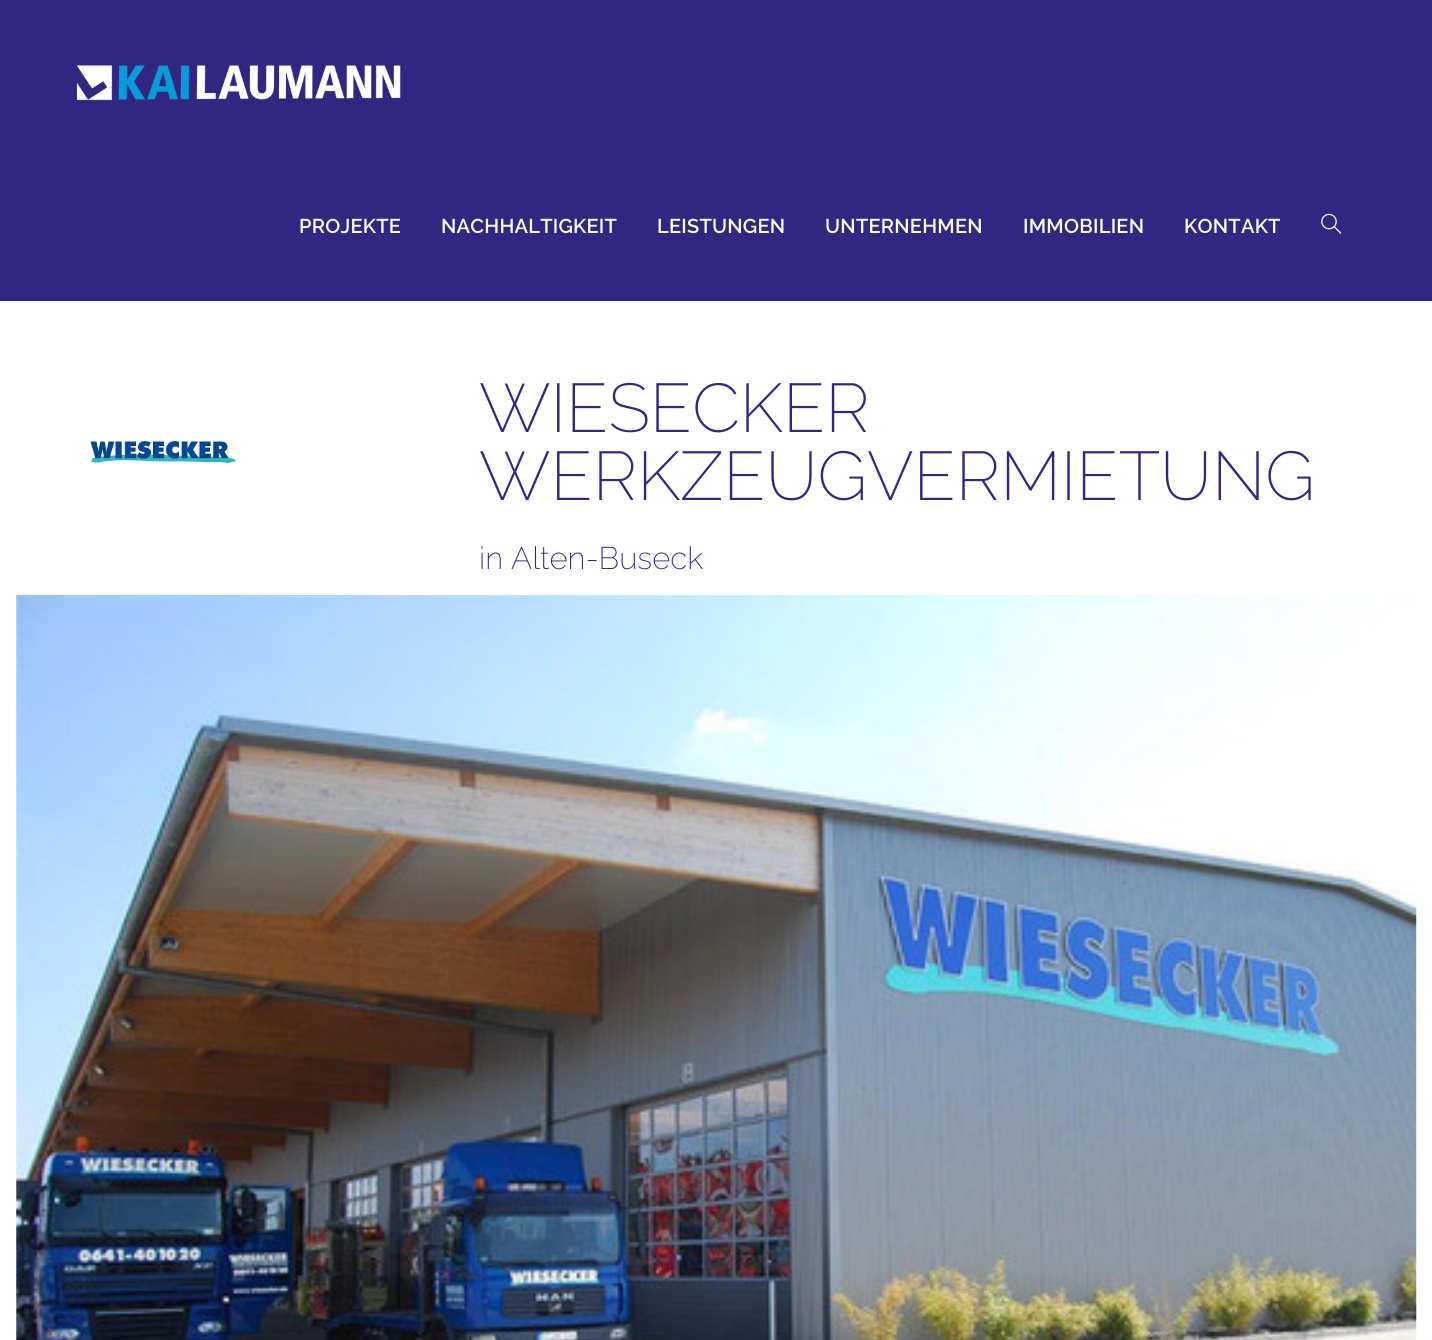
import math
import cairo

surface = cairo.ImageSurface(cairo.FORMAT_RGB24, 1432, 1340)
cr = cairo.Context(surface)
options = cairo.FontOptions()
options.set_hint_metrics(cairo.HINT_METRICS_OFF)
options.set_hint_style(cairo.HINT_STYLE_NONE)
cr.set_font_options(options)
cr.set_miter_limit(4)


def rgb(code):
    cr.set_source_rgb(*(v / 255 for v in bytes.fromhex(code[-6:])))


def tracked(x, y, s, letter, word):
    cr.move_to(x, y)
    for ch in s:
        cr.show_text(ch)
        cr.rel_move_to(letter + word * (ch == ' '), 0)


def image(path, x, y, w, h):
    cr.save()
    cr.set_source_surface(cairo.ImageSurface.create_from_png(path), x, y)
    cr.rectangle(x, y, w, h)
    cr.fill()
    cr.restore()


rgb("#ffffff")
cr.paint()
rgb("#312682")
cr.rectangle(0, 0, 1432, 301)
cr.fill()
image("img/1.png", 76, 65, 325, 36)
image("img/2.png", 1321, 213, 21, 21)
image("img/3.png", 90, 441, 146, 22)
image("img/4.png", 16, 595, 1401, 745)
cr.select_font_face("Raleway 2 Thin")
cr.set_font_size(20)
rgb("#ffffff")
for x, y, s in [
    (299, 233, "PROJEKTE"),
    (441, 233, "NACHHALTIGKEIT"),
    (657, 233, "LEISTUNGEN"),
    (825, 233, "UNTERNEHMEN"),
    (1023, 233, "IMMOBILIEN"),
    (1184, 233, "KONTAKT"),
]:
    tracked(x, y, s, 0.25, 0)
cr.select_font_face("Raleway Thin")
cr.set_font_size(68.75)
rgb("#312682")
cr.move_to(479, 432)
cr.show_text("WIESECKER")
cr.move_to(479, 500)
cr.show_text("WERKZEUGVERMIETUNG")
cr.set_font_size(31.25)
cr.move_to(479, 569)
cr.show_text("in Alten-Buseck")
surface.write_to_png("page.png")
